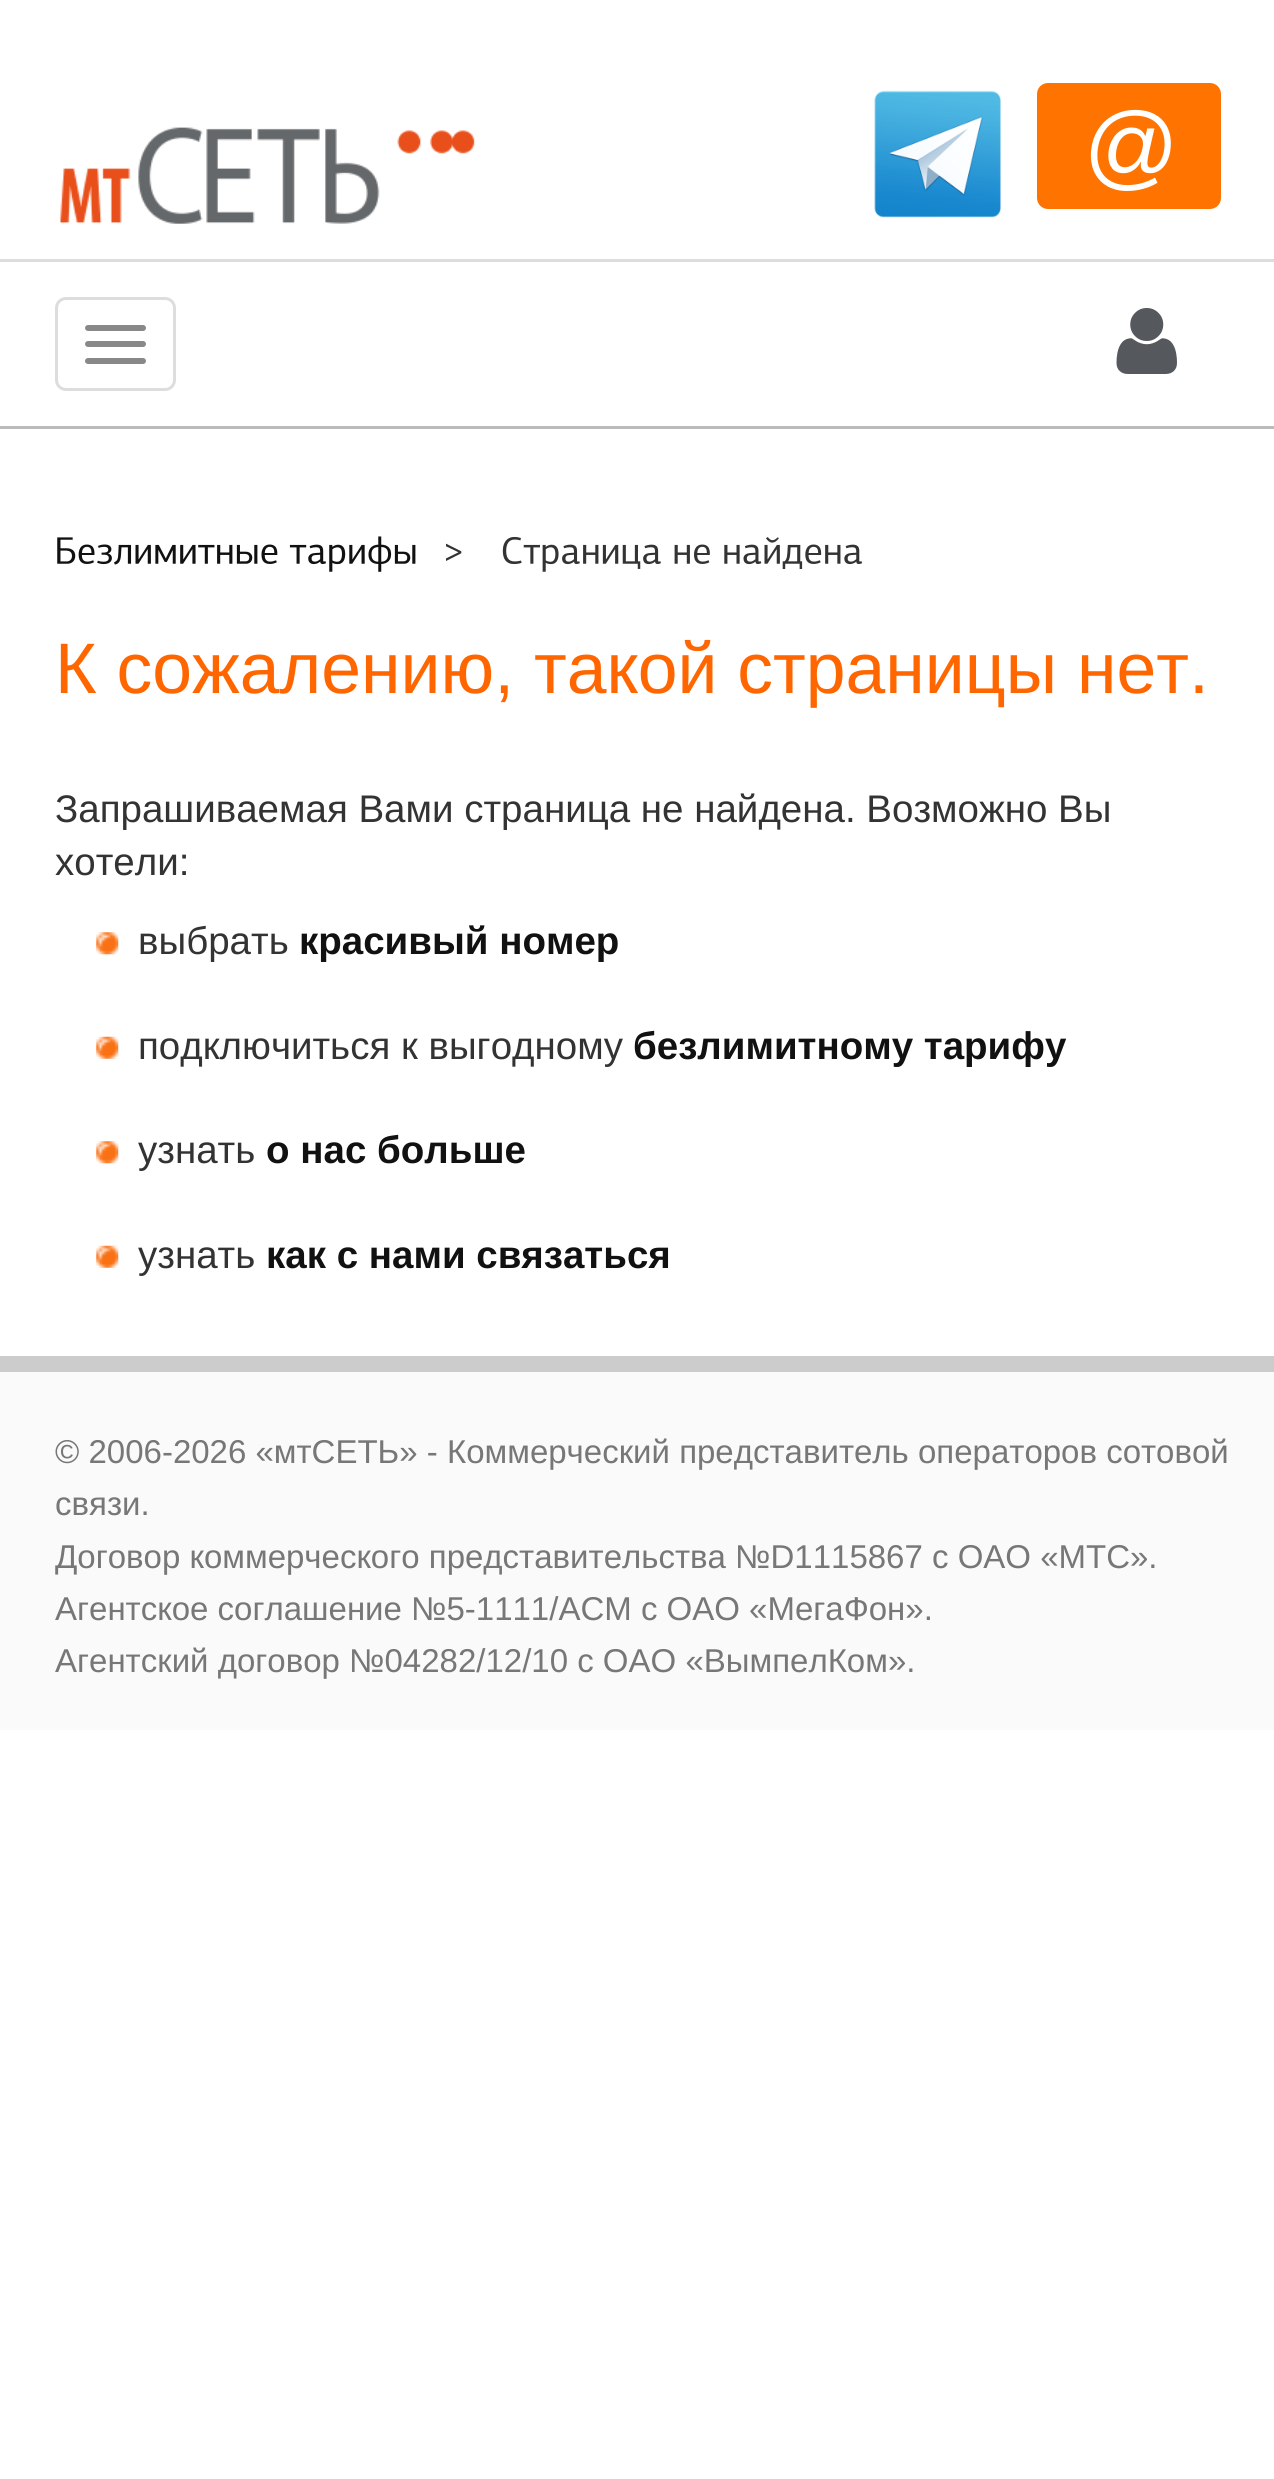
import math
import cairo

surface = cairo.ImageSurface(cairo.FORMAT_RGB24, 1274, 2479)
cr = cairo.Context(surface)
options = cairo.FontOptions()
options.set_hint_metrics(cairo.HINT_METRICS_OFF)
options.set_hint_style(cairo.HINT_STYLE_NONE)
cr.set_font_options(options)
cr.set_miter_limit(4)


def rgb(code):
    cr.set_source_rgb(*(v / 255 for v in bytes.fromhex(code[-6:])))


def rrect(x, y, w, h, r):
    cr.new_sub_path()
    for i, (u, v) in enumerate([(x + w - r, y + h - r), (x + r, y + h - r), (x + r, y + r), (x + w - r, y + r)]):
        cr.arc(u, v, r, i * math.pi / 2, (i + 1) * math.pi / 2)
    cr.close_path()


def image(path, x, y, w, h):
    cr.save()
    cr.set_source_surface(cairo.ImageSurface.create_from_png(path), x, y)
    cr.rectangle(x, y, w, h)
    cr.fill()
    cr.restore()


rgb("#ffffff")
cr.paint()
image("img/1.png", 60, 127, 415, 97)
image("img/2.png", 874, 90, 127, 128)
rgb("#ff7400")
rrect(1037, 83, 184, 126, 11)
cr.fill()
rgb("#dddddd")
cr.rectangle(0, 259, 1274, 3)
cr.fill()
rgb("#bbbbbb")
cr.rectangle(0, 426, 1274, 3)
cr.fill()
rrect(56.5, 298.5, 118, 91, 9.5)
rgb("#dddddd")
cr.set_line_width(3)
cr.stroke()
rgb("#888888")
rrect(85, 325, 61, 6, 3)
cr.fill()
rrect(85, 341, 61, 6, 3)
cr.fill()
rrect(85, 358, 61, 6, 3)
cr.fill()
image("img/3.png", 1116, 308, 61, 66)
image("img/4.png", 57, 536, 359, 36)
image("img/5.png", 446, 543, 16, 18)
image("img/6.png", 502, 536, 360, 36)
image("img/7.png", 96, 932, 23, 23)
image("img/8.png", 96, 1036, 23, 23)
image("img/7.png", 96, 1141, 23, 23)
image("img/8.png", 96, 1245, 23, 23)
rgb("#fafafa")
cr.rectangle(0, 1372, 1274, 358)
cr.fill()
rgb("#cccccc")
cr.rectangle(0, 1356, 1274, 16)
cr.fill()
cr.select_font_face("Liberation Sans", cairo.FONT_SLANT_ITALIC)
cr.set_font_size(94)
rgb("#ffffff")
cr.move_to(1082, 178)
cr.show_text("@")
cr.select_font_face("Liberation Sans")
cr.set_font_size(71.5)
rgb("#ff6600")
cr.move_to(55, 693)
cr.show_text("К сожалению, такой страницы нет.")
cr.set_font_size(38.5)
rgb("#333333")
for x, y, s in [
    (55, 822, "Запрашиваемая Вами страница не найдена. Возможно Вы"),
    (55, 875, "хотели:"),
    (138, 954, "выбрать"),
]:
    cr.move_to(x, y)
    cr.show_text(s)
cr.select_font_face("Liberation Sans", cairo.FONT_SLANT_NORMAL, cairo.FONT_WEIGHT_BOLD)
rgb("#111111")
cr.move_to(299, 954)
cr.show_text("красивый номер")
cr.select_font_face("Liberation Sans")
rgb("#333333")
cr.move_to(138, 1059)
cr.show_text("подключиться к выгодному")
cr.select_font_face("Liberation Sans", cairo.FONT_SLANT_NORMAL, cairo.FONT_WEIGHT_BOLD)
rgb("#111111")
cr.move_to(633, 1059)
cr.show_text("безлимитному тарифу")
cr.select_font_face("Liberation Sans")
rgb("#333333")
cr.move_to(138, 1163)
cr.show_text("узнать")
cr.select_font_face("Liberation Sans", cairo.FONT_SLANT_NORMAL, cairo.FONT_WEIGHT_BOLD)
rgb("#111111")
cr.move_to(266, 1163)
cr.show_text("о нас больше")
cr.select_font_face("Liberation Sans")
rgb("#333333")
cr.move_to(138, 1268)
cr.show_text("узнать")
cr.select_font_face("Liberation Sans", cairo.FONT_SLANT_NORMAL, cairo.FONT_WEIGHT_BOLD)
rgb("#111111")
cr.move_to(266, 1268)
cr.show_text("как с нами связаться")
cr.select_font_face("Liberation Sans")
cr.set_font_size(33)
rgb("#777777")
for x, y, s in [
    (55, 1463, "© 2006-2026 «мтСЕТЬ» - Коммерческий представитель операторов сотовой"),
    (55, 1515, "связи."),
    (55, 1568, "Договор коммерческого представительства №D1115867 c ОАО «МТС»."),
    (55, 1620, "Агентское соглашение №5-1111/ACM c ОАО «МегаФон»."),
    (55, 1672, "Агентский договор №04282/12/10 с ОАО «ВымпелКом»."),
]:
    cr.move_to(x, y)
    cr.show_text(s)
surface.write_to_png("page.png")
